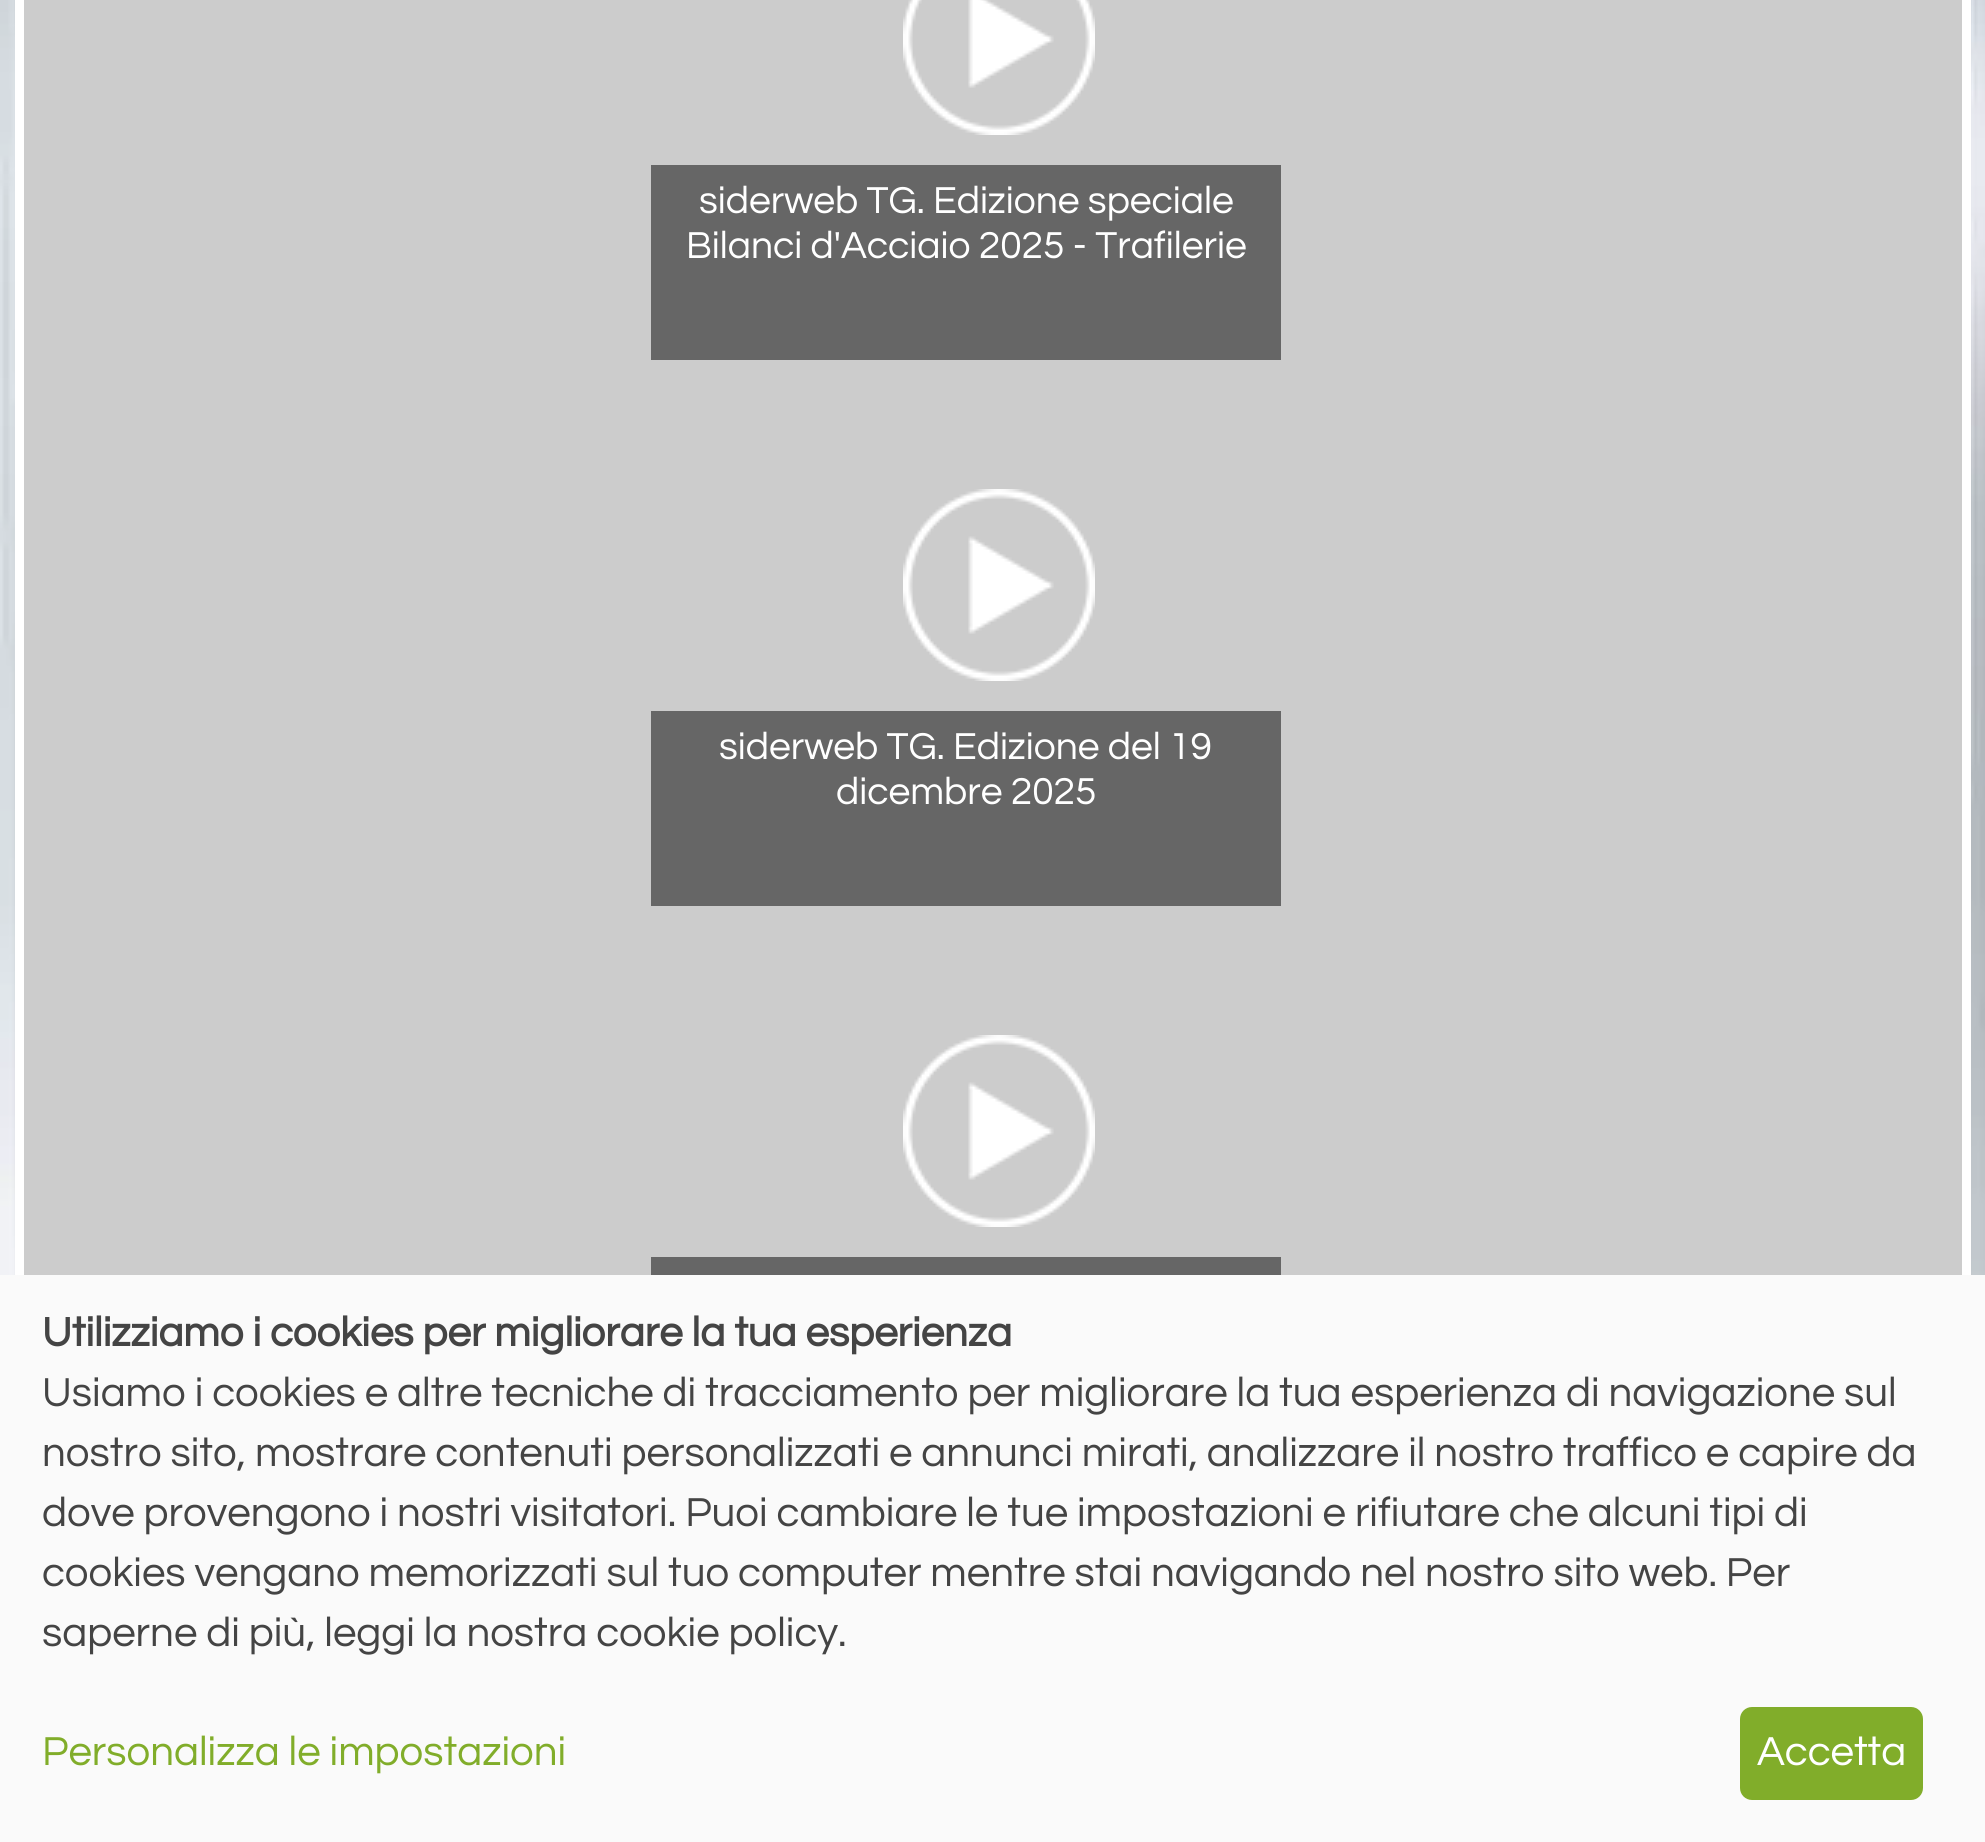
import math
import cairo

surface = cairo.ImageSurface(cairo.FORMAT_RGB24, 1985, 1842)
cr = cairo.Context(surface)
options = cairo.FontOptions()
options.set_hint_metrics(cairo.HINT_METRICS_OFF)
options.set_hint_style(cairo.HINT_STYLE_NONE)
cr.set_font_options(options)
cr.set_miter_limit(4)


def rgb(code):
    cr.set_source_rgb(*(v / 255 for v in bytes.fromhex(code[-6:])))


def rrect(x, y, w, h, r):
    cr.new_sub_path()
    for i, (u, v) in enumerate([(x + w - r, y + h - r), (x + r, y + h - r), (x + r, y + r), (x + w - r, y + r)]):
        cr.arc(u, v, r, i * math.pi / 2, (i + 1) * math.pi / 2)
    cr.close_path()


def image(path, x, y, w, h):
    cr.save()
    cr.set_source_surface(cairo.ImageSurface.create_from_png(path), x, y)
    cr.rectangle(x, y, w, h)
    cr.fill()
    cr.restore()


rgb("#ffffff")
cr.paint()
image("img/1.png", 0, 0, 1985, 1275)
rgb("#ffffff")
cr.rectangle(15, 0, 1956, 1275)
cr.fill()
rgb("#cccccc")
cr.rectangle(24, 0, 1938, 1275)
cr.fill()
image("img/2.png", 903, 0, 192, 135)
rgb("#666666")
cr.rectangle(651, 165, 630, 195)
cr.fill()
image("img/3.png", 903, 489, 192, 192)
cr.rectangle(651, 711, 630, 195)
cr.fill()
image("img/3.png", 903, 1035, 192, 192)
cr.rectangle(651, 1257, 630, 18)
cr.fill()
rgb("#fafafa")
cr.rectangle(0, 1275, 1985, 567)
cr.fill()
rgb("#81ad2a")
rrect(1740, 1707, 183, 93, 12)
cr.fill()
cr.select_font_face("Questrial")
cr.set_font_size(39)
rgb("#ffffff")
for x, y, s in [
    (699, 213, "siderweb TG. Edizione speciale"),
    (686, 258, "Bilanci d'Acciaio 2025 - Trafilerie"),
    (719, 759, "siderweb TG. Edizione del 19"),
    (836, 804, "dicembre 2025"),
]:
    cr.move_to(x, y)
    cr.show_text(s)
cr.select_font_face("Questrial", cairo.FONT_SLANT_NORMAL, cairo.FONT_WEIGHT_BOLD)
cr.set_font_size(42)
rgb("#444444")
cr.move_to(42, 1346)
cr.show_text("Utilizziamo i cookies per migliorare la tua esperienza")
cr.select_font_face("Questrial")
for x, y, s in [
    (42, 1406, "Usiamo i cookies e altre tecniche di tracciamento per migliorare la tua esperienza di navigazione sul"),
    (42, 1466, "nostro sito, mostrare contenuti personalizzati e annunci mirati, analizzare il nostro traffico e capire da"),
    (42, 1526, "dove provengono i nostri visitatori. Puoi cambiare le tue impostazioni e rifiutare che alcuni tipi di"),
    (42, 1586, "cookies vengano memorizzati sul tuo computer mentre stai navigando nel nostro sito web. Per"),
    (42, 1646, "saperne di più, leggi la nostra cookie policy."),
]:
    cr.move_to(x, y)
    cr.show_text(s)
rgb("#81ad2a")
cr.move_to(42, 1765)
cr.show_text("Personalizza le impostazioni")
rgb("#ffffff")
cr.move_to(1757, 1765)
cr.show_text("Accetta")
surface.write_to_png("page.png")
